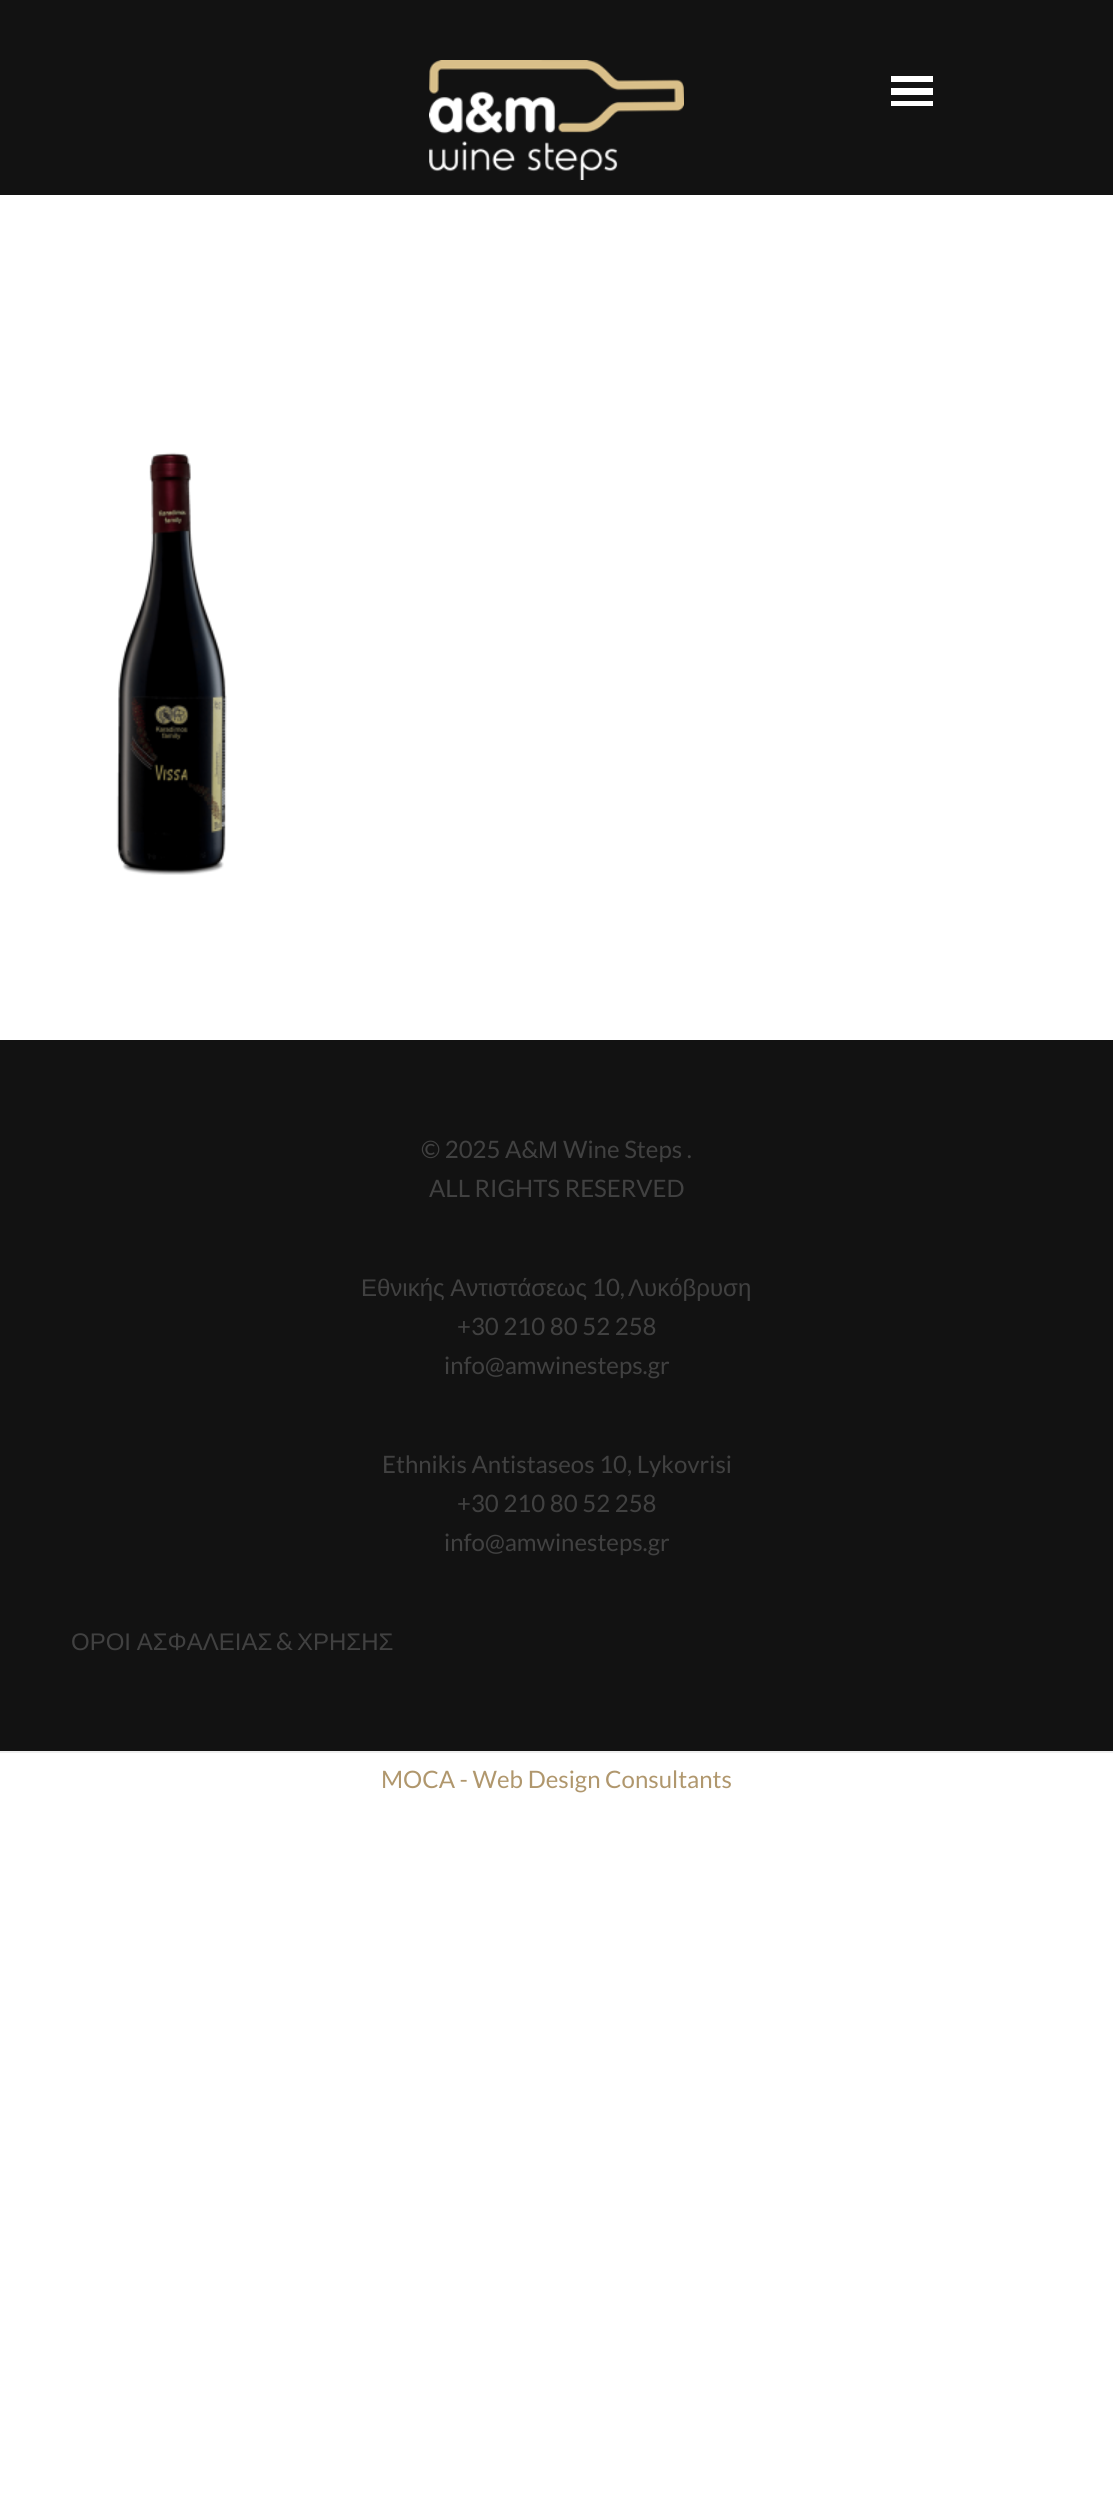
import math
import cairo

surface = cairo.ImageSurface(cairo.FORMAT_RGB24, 1113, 2520)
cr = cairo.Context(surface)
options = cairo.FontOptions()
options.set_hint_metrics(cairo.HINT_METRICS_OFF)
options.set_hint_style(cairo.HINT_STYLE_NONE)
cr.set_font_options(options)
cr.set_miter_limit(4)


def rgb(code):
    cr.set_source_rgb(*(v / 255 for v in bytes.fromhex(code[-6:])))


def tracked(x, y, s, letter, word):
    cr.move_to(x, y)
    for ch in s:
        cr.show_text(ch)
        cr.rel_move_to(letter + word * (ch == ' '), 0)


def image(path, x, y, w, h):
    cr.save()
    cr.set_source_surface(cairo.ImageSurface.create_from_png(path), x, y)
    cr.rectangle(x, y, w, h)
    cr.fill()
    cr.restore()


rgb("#ffffff")
cr.paint()
rgb("#121212")
cr.rectangle(0, 0, 1113, 195)
cr.fill()
image("img/1.png", 429, 60, 255, 120)
rgb("#ffffff")
cr.new_path()
cr.move_to(891, 106)
cr.line_to(933, 106)
cr.line_to(933, 101)
cr.line_to(891, 101)
cr.close_path()
cr.move_to(891, 76)
cr.line_to(891, 82)
cr.line_to(933, 82)
cr.line_to(933, 76)
cr.close_path()
cr.move_to(891, 95)
cr.line_to(933, 95)
cr.line_to(933, 88)
cr.line_to(891, 88)
cr.close_path()
cr.fill()
image("img/2.png", 116, 452, 111, 423)
rgb("#121212")
cr.rectangle(0, 1040, 1113, 711)
cr.fill()
rgb("#eeeeee")
cr.rectangle(0, 1751, 1113, 2)
cr.fill()
cr.select_font_face("Lato")
cr.set_font_size(24)
rgb("#414141")
cr.move_to(421, 1158)
cr.show_text("© 2025 A&")
cr.select_font_face("Liberation Sans")
cr.move_to(538, 1158)
cr.show_text("Μ")
cr.select_font_face("Lato")
cr.move_to(563, 1158)
cr.show_text("Wine Steps .")
cr.move_to(429, 1197)
cr.show_text("ALL RIGHTS RESERVED")
cr.select_font_face("Liberation Sans")
tracked(361, 1296, "Εθνικής Αντιστάσεως", 0, -1)
cr.select_font_face("Lato")
cr.move_to(592, 1296)
cr.show_text("10,")
cr.select_font_face("Liberation Sans")
cr.move_to(628, 1296)
cr.show_text("Λυκόβρυση")
cr.select_font_face("Lato")
for x, y, s in [
    (457, 1335, "+30 210 80 52 258"),
    (444, 1374, "info@amwinesteps.gr"),
    (382, 1473, "Ethnikis Antistaseos 10, Lykovrisi"),
    (457, 1512, "+30 210 80 52 258"),
    (444, 1551, "info@amwinesteps.gr"),
]:
    cr.move_to(x, y)
    cr.show_text(s)
cr.select_font_face("Liberation Sans")
tracked(71, 1650, "ΟΡΟΙ ΑΣΦΑΛΕΙΑΣ", 0, -1)
cr.select_font_face("Lato")
cr.move_to(276, 1650)
cr.show_text("&")
cr.select_font_face("Liberation Sans")
cr.move_to(297, 1650)
cr.show_text("ΧΡΗΣΗΣ")
cr.select_font_face("Lato")
rgb("#b0976d")
cr.move_to(381, 1788)
cr.show_text("MOCA - Web Design Consultants")
surface.write_to_png("page.png")
